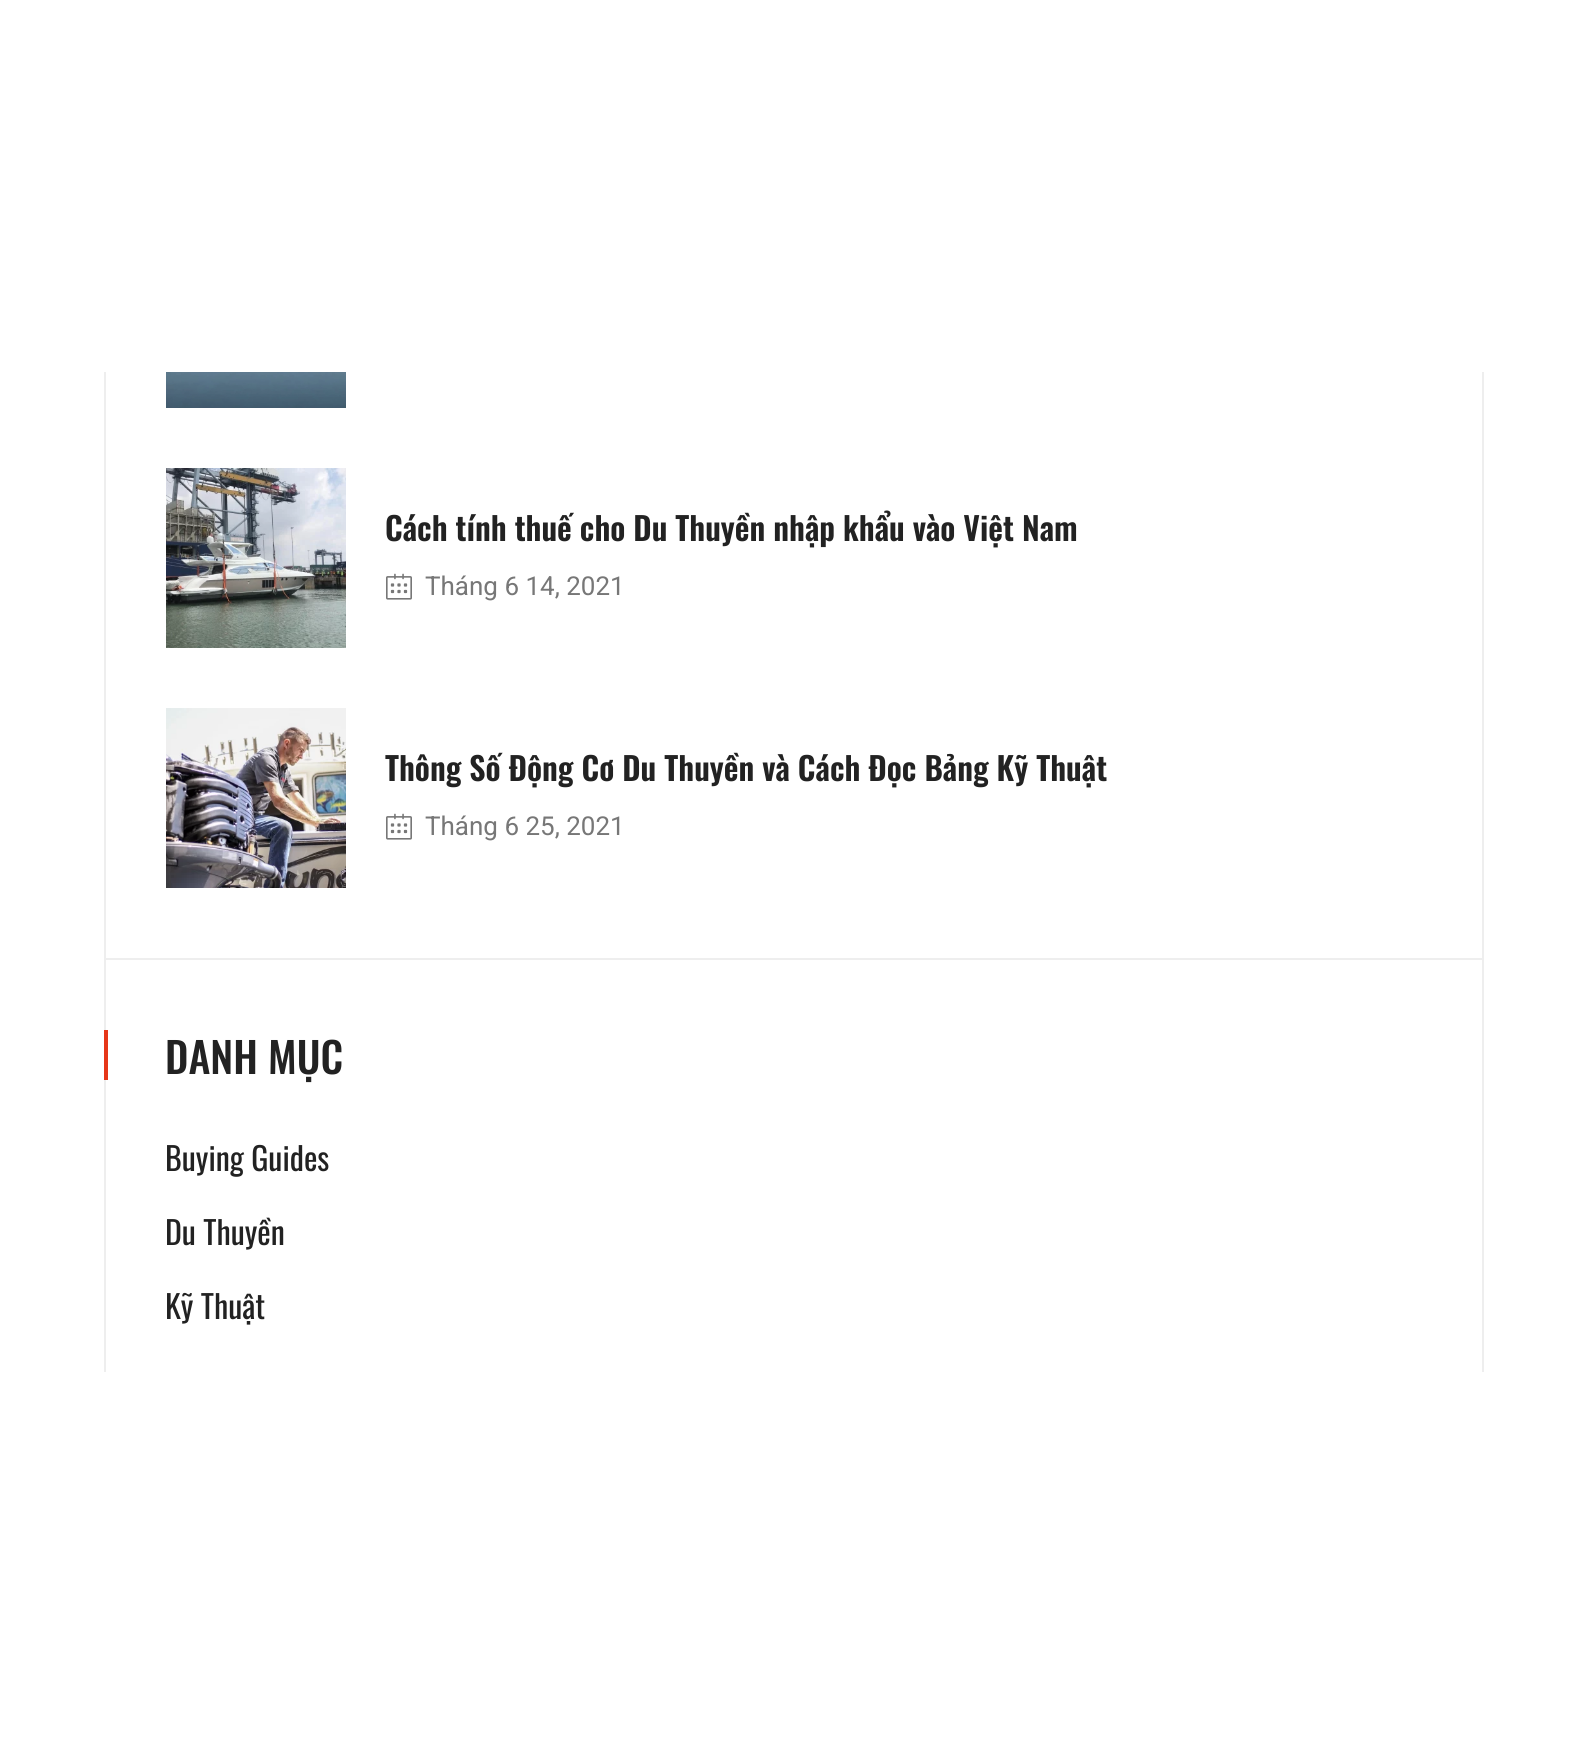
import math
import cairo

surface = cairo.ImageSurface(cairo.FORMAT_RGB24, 1586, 1741)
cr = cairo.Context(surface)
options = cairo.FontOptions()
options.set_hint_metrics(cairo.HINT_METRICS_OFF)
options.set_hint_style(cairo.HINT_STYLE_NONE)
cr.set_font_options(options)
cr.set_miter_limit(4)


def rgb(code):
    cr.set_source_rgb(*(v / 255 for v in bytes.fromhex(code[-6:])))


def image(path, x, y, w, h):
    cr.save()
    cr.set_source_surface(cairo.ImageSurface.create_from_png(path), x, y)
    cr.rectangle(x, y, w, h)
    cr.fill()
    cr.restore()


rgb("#ffffff")
cr.paint()
rgb("#eeeeee")
cr.rectangle(1482, 372, 2, 1000)
cr.fill()
cr.rectangle(104, 372, 2, 1000)
cr.fill()
image("img/1.png", 166, 372, 180, 36)
image("img/2.png", 166, 468, 180, 180)
image("img/3.png", 386, 573, 26, 27)
image("img/4.png", 166, 708, 180, 180)
image("img/3.png", 386, 813, 26, 27)
cr.rectangle(106, 958, 1376, 2)
cr.fill()
rgb("#e63619")
cr.rectangle(104, 1030, 4, 50)
cr.fill()
cr.select_font_face("Oswald SemiBold")
cr.set_font_size(32)
rgb("#222222")
cr.move_to(385, 541)
cr.show_text("Cách tính thuế cho Du Thuyền nhập khẩu vào Việt Nam")
cr.select_font_face("Roboto")
cr.set_font_size(26)
rgb("#777777")
cr.move_to(425, 595)
cr.show_text("Tháng 6 14, 2021")
cr.select_font_face("Oswald SemiBold")
cr.set_font_size(32)
rgb("#222222")
cr.move_to(385, 781)
cr.show_text("Thông Số Động Cơ Du Thuyền và Cách Đọc Bảng Kỹ Thuật")
cr.select_font_face("Roboto")
cr.set_font_size(26)
rgb("#777777")
cr.move_to(425, 835)
cr.show_text("Tháng 6 25, 2021")
cr.select_font_face("Oswald Medium")
cr.set_font_size(42)
rgb("#222222")
cr.move_to(165, 1074)
cr.show_text("DANH MỤC")
cr.select_font_face("Oswald")
cr.set_font_size(32)
for x, y, s in [
    (165, 1171, "Buying Guides"),
    (165, 1245, "Du Thuyền"),
    (165, 1319, "Kỹ Thuật"),
]:
    cr.move_to(x, y)
    cr.show_text(s)
surface.write_to_png("page.png")
